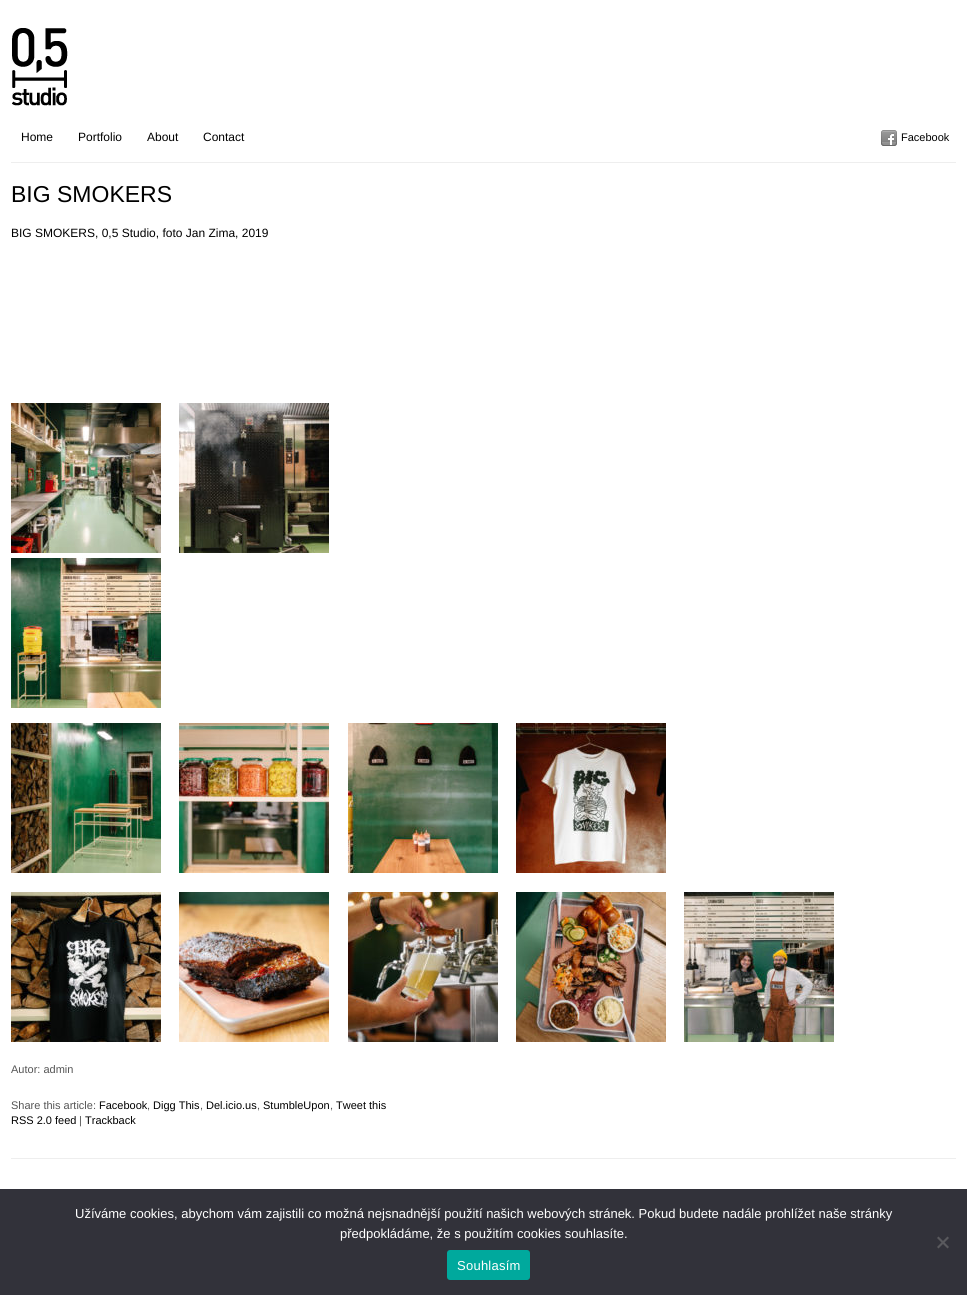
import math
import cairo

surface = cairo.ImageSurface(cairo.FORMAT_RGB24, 967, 1295)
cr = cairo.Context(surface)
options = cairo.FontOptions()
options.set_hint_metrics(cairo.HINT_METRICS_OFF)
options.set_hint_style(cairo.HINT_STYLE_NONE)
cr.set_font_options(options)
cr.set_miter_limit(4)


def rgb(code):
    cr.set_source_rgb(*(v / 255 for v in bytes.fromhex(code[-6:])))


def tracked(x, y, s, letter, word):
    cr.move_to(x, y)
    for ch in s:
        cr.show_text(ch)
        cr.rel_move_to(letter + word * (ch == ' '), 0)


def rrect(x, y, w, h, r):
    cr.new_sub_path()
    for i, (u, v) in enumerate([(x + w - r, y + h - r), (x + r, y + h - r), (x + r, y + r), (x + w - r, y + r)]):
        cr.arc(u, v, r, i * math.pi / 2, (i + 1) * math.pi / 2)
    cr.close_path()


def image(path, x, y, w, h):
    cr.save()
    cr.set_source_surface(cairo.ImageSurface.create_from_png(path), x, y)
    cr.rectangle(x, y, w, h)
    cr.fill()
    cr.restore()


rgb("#ffffff")
cr.paint()
image("img/1.png", 12, 28, 56, 78)
rgb("#eeeeee")
cr.rectangle(11, 162, 945, 1)
cr.fill()
image("img/2.png", 881, 130, 16, 16)
image("img/3.png", 11, 403, 150, 150)
image("img/4.png", 179, 403, 150, 150)
image("img/5.png", 11, 558, 150, 150)
image("img/6.png", 11, 723, 150, 150)
image("img/7.png", 179, 723, 150, 150)
image("img/8.png", 348, 723, 150, 150)
image("img/9.png", 516, 723, 150, 150)
image("img/10.png", 11, 892, 150, 150)
image("img/11.png", 179, 892, 150, 150)
image("img/12.png", 348, 892, 150, 150)
image("img/13.png", 516, 892, 150, 150)
image("img/14.png", 684, 892, 150, 150)
cr.rectangle(11, 1158, 945, 1)
cr.fill()
rgb("#32323a")
cr.rectangle(0, 1189, 967, 106)
cr.fill()
rgb("#59595d")
cr.new_path()
cr.move_to(947.5, 1236.5)
cr.line_to(949, 1238)
cr.line_to(938.5, 1248.5)
cr.line_to(937, 1247)
cr.close_path()
cr.fill()
cr.new_path()
cr.move_to(937, 1238)
cr.line_to(938.5, 1236.5)
cr.line_to(949, 1247)
cr.line_to(947.5, 1248.5)
cr.close_path()
cr.fill()
rgb("#00a99d")
rrect(447, 1250, 83, 30, 3)
cr.fill()
cr.select_font_face("Liberation Sans")
cr.set_font_size(12)
rgb("#000000")
for x, y, s in [
    (21, 141, "Home"),
    (78, 141, "Portfolio"),
    (147, 141, "About"),
    (203, 141, "Contact"),
]:
    cr.move_to(x, y)
    cr.show_text(s)
cr.set_font_size(11)
cr.move_to(901, 141)
cr.show_text("Facebook")
cr.set_font_size(23)
cr.move_to(11, 202)
cr.show_text("BIG SMOKERS")
cr.set_font_size(12)
cr.move_to(11, 237)
cr.show_text("BIG SMOKERS, 0,5 Studio, foto Jan Zima, 2019")
cr.set_font_size(11)
rgb("#555555")
cr.move_to(11, 1073)
cr.show_text("Autor: admin")
cr.move_to(11, 1109)
cr.show_text("Share this article:")
rgb("#000000")
cr.move_to(99, 1109)
cr.show_text("Facebook")
rgb("#555555")
cr.move_to(147, 1109)
cr.show_text(",")
rgb("#000000")
cr.move_to(153, 1109)
cr.show_text("Digg This")
rgb("#555555")
cr.move_to(200, 1109)
cr.show_text(",")
rgb("#000000")
cr.move_to(206, 1109)
cr.show_text("Del.icio.us")
rgb("#555555")
cr.move_to(257, 1109)
cr.show_text(",")
rgb("#000000")
cr.move_to(263, 1109)
cr.show_text("StumbleUpon")
rgb("#555555")
cr.move_to(330, 1109)
cr.show_text(",")
rgb("#000000")
cr.move_to(336, 1109)
cr.show_text("Tweet this")
cr.move_to(11, 1124)
cr.show_text("RSS 2.0 feed")
rgb("#555555")
cr.move_to(79, 1124)
cr.show_text("|")
rgb("#000000")
cr.move_to(85, 1124)
cr.show_text("Trackback")
cr.set_font_size(13)
rgb("#ffffff")
cr.move_to(75, 1218)
cr.show_text("Užíváme cookies, abychom vám zajistili co možná nejsnadnější použití našich webových stránek. Pokud budete nadále prohlížet naše stránky")
cr.move_to(340, 1238)
cr.show_text("předpokládáme, že s použitím cookies souhlasíte.")
tracked(457, 1270, "Souhlasím", 0.25, 0)
surface.write_to_png("page.png")
